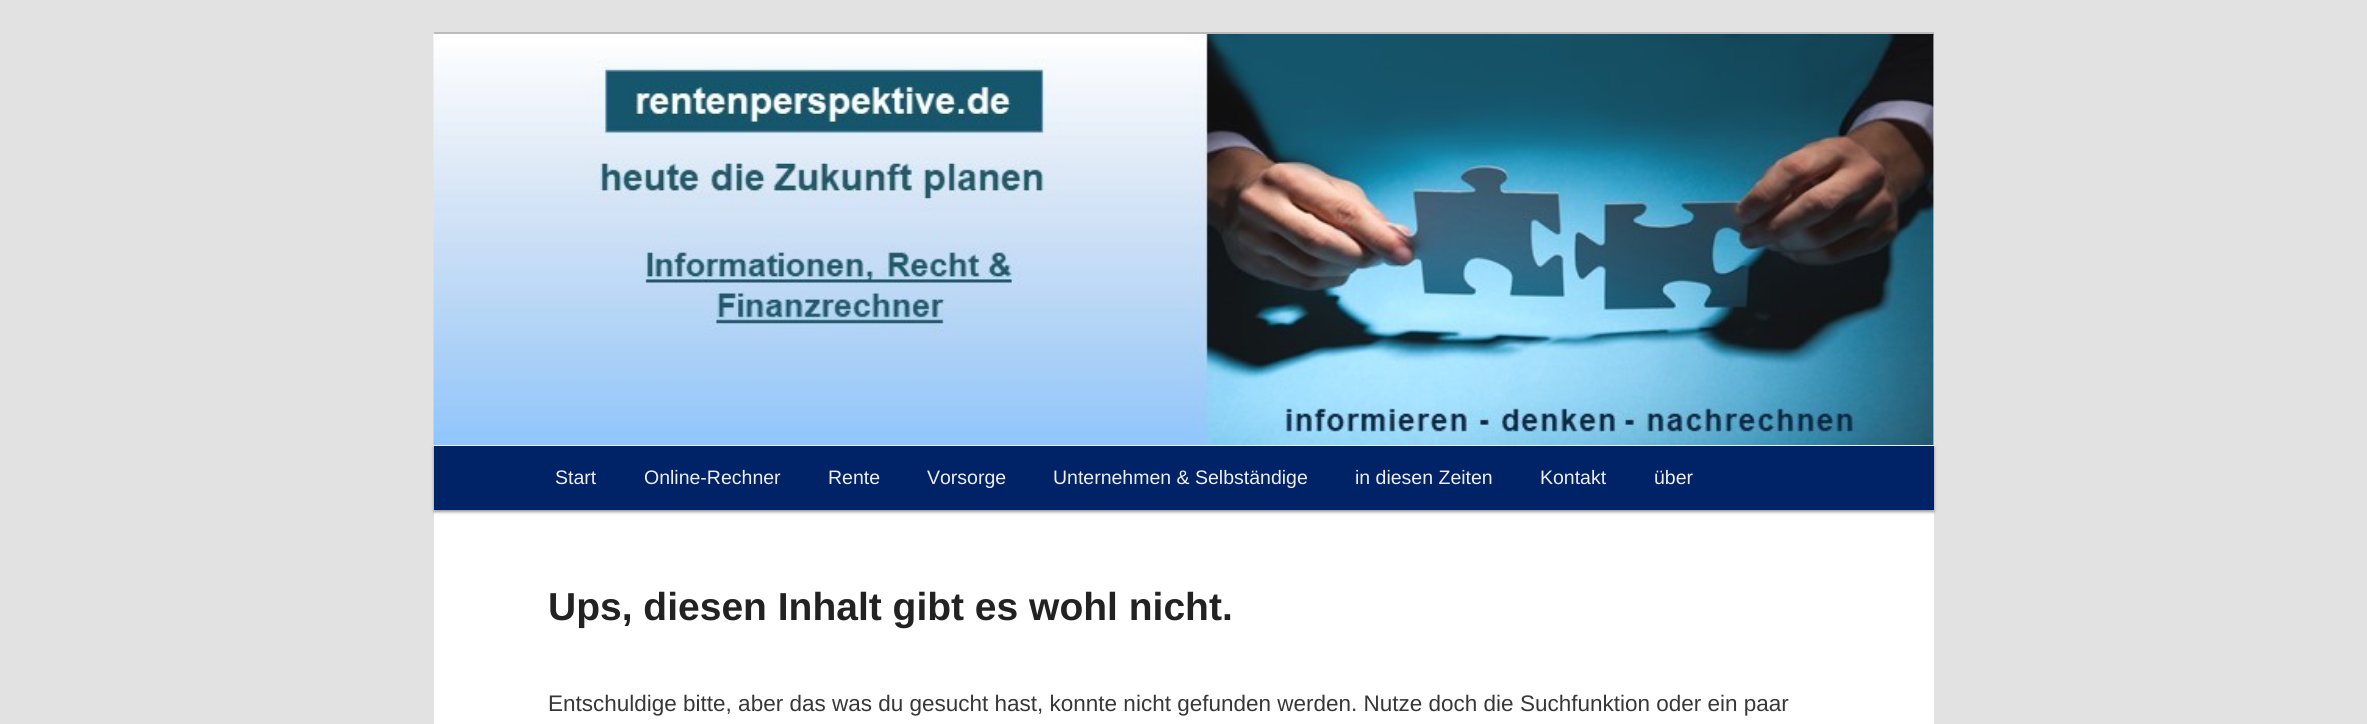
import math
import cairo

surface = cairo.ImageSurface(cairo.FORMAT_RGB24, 2367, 724)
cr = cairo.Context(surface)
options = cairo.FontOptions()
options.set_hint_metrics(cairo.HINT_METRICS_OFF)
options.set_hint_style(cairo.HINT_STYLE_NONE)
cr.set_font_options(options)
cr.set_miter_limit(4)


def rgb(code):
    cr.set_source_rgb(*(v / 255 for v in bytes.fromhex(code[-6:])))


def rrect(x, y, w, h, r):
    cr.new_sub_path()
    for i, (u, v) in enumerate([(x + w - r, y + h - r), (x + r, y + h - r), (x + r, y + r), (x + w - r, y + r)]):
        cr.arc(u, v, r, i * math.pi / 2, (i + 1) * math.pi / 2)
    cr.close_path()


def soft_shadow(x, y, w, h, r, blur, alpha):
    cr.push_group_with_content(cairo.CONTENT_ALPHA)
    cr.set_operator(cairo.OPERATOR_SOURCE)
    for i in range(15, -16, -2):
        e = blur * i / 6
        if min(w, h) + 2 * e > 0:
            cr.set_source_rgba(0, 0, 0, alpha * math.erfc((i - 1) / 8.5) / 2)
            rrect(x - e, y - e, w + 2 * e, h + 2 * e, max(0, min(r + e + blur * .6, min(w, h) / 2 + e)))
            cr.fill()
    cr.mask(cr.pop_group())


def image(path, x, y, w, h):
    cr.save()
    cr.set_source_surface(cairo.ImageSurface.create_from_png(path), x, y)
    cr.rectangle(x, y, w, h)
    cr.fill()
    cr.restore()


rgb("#e2e2e2")
cr.paint()
rgb("#ffffff")
cr.rectangle(434, 35, 1500, 689)
cr.fill()
rgb("#bbbbbb")
cr.rectangle(434, 32, 1500, 3)
cr.fill()
rgb("#000000")
soft_shadow(434, 447, 1500, 65, 0, 1.5, 0.4)
image("img/1.png", 433, 34, 1501, 411)
rgb("#002266")
cr.rectangle(434, 446, 1500, 64)
cr.fill()
cr.select_font_face("Liberation Sans")
cr.set_font_size(19.5)
rgb("#eeeeee")
for x, y, s in [
    (555, 484, "Start"),
    (644, 484, "Online-Rechner"),
    (828, 484, "Rente"),
    (927, 484, "Vorsorge"),
    (1053, 484, "Unternehmen & Selbständige"),
    (1355, 484, "in diesen Zeiten"),
    (1540, 484, "Kontakt"),
    (1654, 484, "über"),
]:
    cr.move_to(x, y)
    cr.show_text(s)
cr.select_font_face("Liberation Sans", cairo.FONT_SLANT_NORMAL, cairo.FONT_WEIGHT_BOLD)
cr.set_font_size(39)
rgb("#222222")
cr.move_to(548, 620)
cr.show_text("Ups, diesen Inhalt gibt es wohl nicht.")
cr.select_font_face("Liberation Sans")
cr.set_font_size(22.5)
rgb("#373737")
cr.move_to(548, 711)
cr.show_text("Entschuldige bitte, aber das was du gesucht hast, konnte nicht gefunden werden. Nutze doch die Suchfunktion oder ein paar")
surface.write_to_png("page.png")
